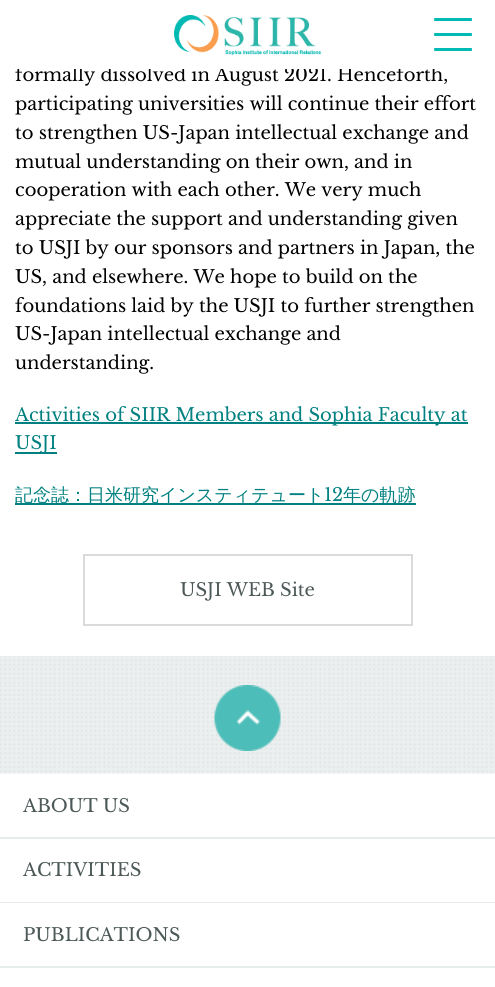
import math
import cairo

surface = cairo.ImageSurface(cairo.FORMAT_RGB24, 495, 987)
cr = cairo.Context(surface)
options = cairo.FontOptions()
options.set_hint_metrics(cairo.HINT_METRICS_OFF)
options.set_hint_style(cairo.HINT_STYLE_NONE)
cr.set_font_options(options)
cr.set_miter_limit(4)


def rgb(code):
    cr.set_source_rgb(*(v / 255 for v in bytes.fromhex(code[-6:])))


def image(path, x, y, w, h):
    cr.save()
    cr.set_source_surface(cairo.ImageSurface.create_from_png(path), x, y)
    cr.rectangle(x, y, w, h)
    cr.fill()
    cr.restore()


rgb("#ffffff")
cr.paint()
image("img/1.png", 174, 15, 147, 41)
image("img/2.png", 434, 18, 38, 33)
image("img/3.png", 0, 656, 495, 29)
for x, y, w, h, color in [
    (15, 422, 453, 2, "#008080"),
    (15, 452, 42, 2, "#008080"),
    (15, 503, 401, 2, "#008080"),
]:
    rgb(color)
    cr.rectangle(x, y, w, h)
    cr.fill()
cr.rectangle(84, 555, 328, 70)
rgb("#dadada")
cr.stroke()
image("img/4.png", 0, 685, 495, 89)
image("img/5.png", 214, 685, 67, 66)
for x, y, w, h, color in [
    (0, 837, 495, 2, "#e7eded"),
    (0, 902, 495, 1, "#e7eded"),
    (0, 966, 495, 2, "#e7eded"),
]:
    rgb(color)
    cr.rectangle(x, y, w, h)
    cr.fill()
cr.select_font_face("Libre Baskerville")
cr.set_font_size(18)
rgb("#000000")
cr.move_to(15, 81)
cr.show_text("formally dissolved in August 2021. Henceforth,")
rgb("#ffffff")
cr.rectangle(17, 66, 418, 3)
cr.fill()
rgb("#000000")
for x, y, s in [
    (15, 110, "participating universities will continue their effort"),
    (15, 139, "to strengthen US-Japan intellectual exchange and"),
    (15, 168, "mutual understanding on their own, and in"),
    (15, 196, "cooperation with each other. We very much"),
    (15, 225, "appreciate the support and understanding given"),
    (15, 254, "to USJI by our sponsors and partners in Japan, the"),
    (15, 283, "US, and elsewhere. We hope to build on the"),
    (15, 312, "foundations laid by the USJI to further strengthen"),
    (15, 340, "US-Japan intellectual exchange and"),
    (15, 369, "understanding."),
]:
    cr.move_to(x, y)
    cr.show_text(s)
rgb("#008080")
cr.move_to(15, 421)
cr.show_text("Activities of SIIR Members and Sophia Faculty at")
cr.move_to(15, 449)
cr.show_text("USJI")
cr.select_font_face("WenQuanYi Zen Hei Medium")
cr.move_to(15, 501)
cr.show_text("記念誌：日米研究インスティテュート")
cr.select_font_face("Libre Baskerville")
cr.move_to(324, 501)
cr.show_text("12")
cr.select_font_face("WenQuanYi Zen Hei Medium")
cr.move_to(343, 501)
cr.show_text("年の軌跡")
cr.select_font_face("Libre Baskerville")
rgb("#4d5958")
for x, y, s in [
    (180, 596, "USJI WEB Site"),
    (23, 812, "ABOUT US"),
    (23, 876, "ACTIVITIES"),
    (23, 941, "PUBLICATIONS"),
]:
    cr.move_to(x, y)
    cr.show_text(s)
surface.write_to_png("page.png")
